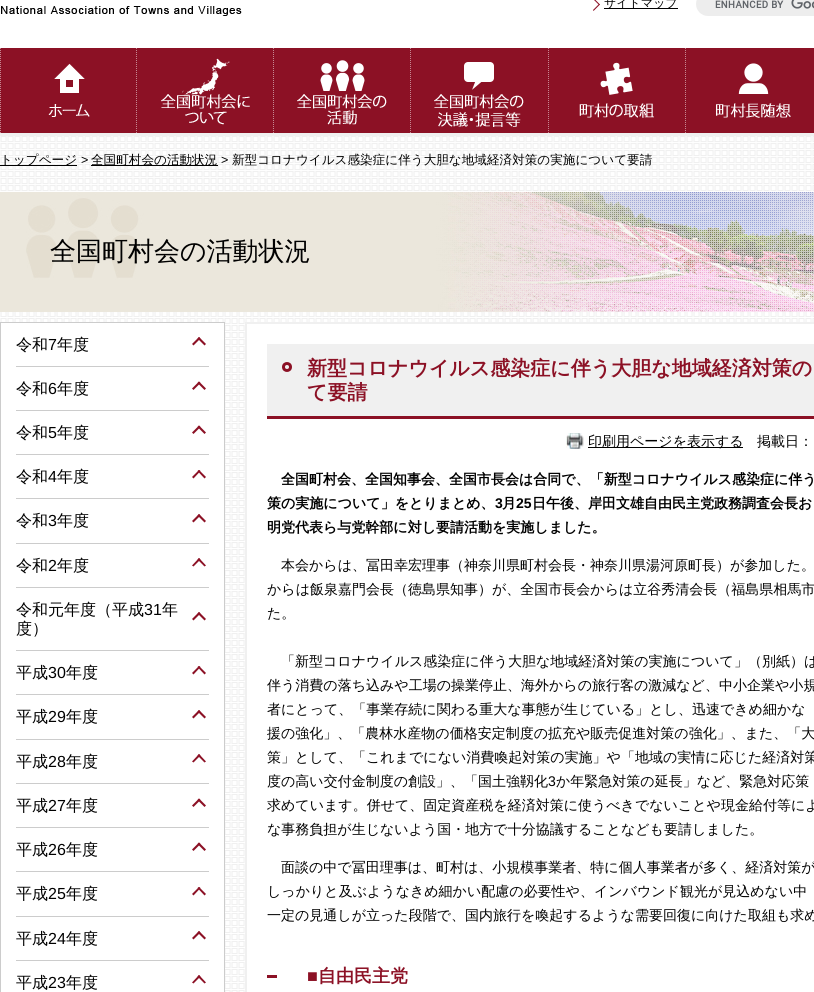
import math
import cairo

surface = cairo.ImageSurface(cairo.FORMAT_RGB24, 814, 992)
cr = cairo.Context(surface)
options = cairo.FontOptions()
options.set_hint_metrics(cairo.HINT_METRICS_OFF)
options.set_hint_style(cairo.HINT_STYLE_NONE)
cr.set_font_options(options)
cr.set_miter_limit(4)


def rgb(code):
    cr.set_source_rgb(*(v / 255 for v in bytes.fromhex(code[-6:])))


def rrect(x, y, w, h, r):
    cr.new_sub_path()
    for i, (u, v) in enumerate([(x + w - r, y + h - r), (x + r, y + h - r), (x + r, y + r), (x + w - r, y + r)]):
        cr.arc(u, v, r, i * math.pi / 2, (i + 1) * math.pi / 2)
    cr.close_path()


def image(path, x, y, w, h):
    cr.save()
    cr.set_source_surface(cairo.ImageSurface.create_from_png(path), x, y)
    cr.rectangle(x, y, w, h)
    cr.fill()
    cr.restore()


rgb("#ffffff")
cr.paint()
rgb("#8c1125")
cr.new_path()
cr.move_to(593.5, -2)
cr.line_to(600, 4.5)
cr.line_to(599, 5)
cr.line_to(593, -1)
cr.close_path()
cr.fill()
cr.new_path()
cr.move_to(599, 4)
cr.line_to(600, 4.5)
cr.line_to(593.5, 11)
cr.line_to(593, 10)
cr.close_path()
cr.fill()
rgb("#000000")
cr.rectangle(604, 8, 74, 1)
cr.fill()
rgb("#ededed")
rrect(696, -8, 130, 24, 12)
cr.fill()
image("img/1.png", 715, 0, 99, 9)
image("img/2.png", 1, 6, 241, 10)
rgb("#8c1125")
cr.rectangle(0, 48, 814, 85)
cr.fill()
image("img/3.png", 48, 63, 42, 54)
cr.new_path()
cr.move_to(136.5, 48)
cr.line_to(136.5, 133)
rgb("#c68892")
cr.set_line_width(1)
cr.set_dash([1, 1])
cr.stroke()
cr.new_path()
cr.move_to(0.5, 48)
cr.line_to(0.5, 133)
cr.stroke()
image("img/4.png", 161, 58, 89, 67)
cr.new_path()
cr.move_to(273.5, 48)
cr.line_to(273.5, 133)
cr.stroke()
image("img/5.png", 297, 60, 90, 65)
cr.new_path()
cr.move_to(410.5, 48)
cr.line_to(410.5, 133)
cr.stroke()
image("img/6.png", 434, 62, 90, 65)
cr.new_path()
cr.move_to(548.5, 48)
cr.line_to(548.5, 133)
cr.stroke()
image("img/7.png", 579, 62, 75, 56)
cr.new_path()
cr.move_to(685.5, 48)
cr.line_to(685.5, 133)
cr.stroke()
image("img/8.png", 716, 63, 75, 55)
image("img/9.png", 0, 136, 814, 856)
for x, y, w, h, color in [
    (0, 133, 814, 3, "#f0f0f0"),
    (0, 165, 77, 1, "#000000"),
    (91, 165, 127, 1, "#000000"),
    (0, 192, 26, 120, "#ebe7dc"),
]:
    rgb(color)
    cr.rectangle(x, y, w, h)
    cr.fill()
image("img/10.png", 26, 192, 788, 120)
rgb("#ffffff")
cr.rectangle(0.5, 322.5, 224, 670)
cr.fill_preserve()
rgb("#cccccc")
cr.set_dash([])
cr.stroke()
rgb("#8c1125")
cr.new_path()
cr.move_to(192, 344)
cr.line_to(199, 337)
cr.line_to(200.5, 338.5)
cr.line_to(193.5, 345.5)
cr.close_path()
cr.fill()
cr.new_path()
cr.move_to(197.5, 338.5)
cr.line_to(199, 337)
cr.line_to(206, 344)
cr.line_to(204.5, 345.5)
cr.close_path()
cr.fill()
rgb("#cccccc")
cr.rectangle(16, 366, 193, 1)
cr.fill()
rgb("#8c1125")
cr.new_path()
cr.move_to(192, 388.5)
cr.line_to(199, 381.5)
cr.line_to(200.5, 383)
cr.line_to(193.5, 390)
cr.close_path()
cr.fill()
cr.new_path()
cr.move_to(197.5, 383)
cr.line_to(199, 381.5)
cr.line_to(206, 388.5)
cr.line_to(204.5, 390)
cr.close_path()
cr.fill()
rgb("#cccccc")
cr.rectangle(16, 410, 193, 1)
cr.fill()
rgb("#8c1125")
cr.new_path()
cr.move_to(192, 432.5)
cr.line_to(199, 425.5)
cr.line_to(200.5, 427)
cr.line_to(193.5, 434)
cr.close_path()
cr.fill()
cr.new_path()
cr.move_to(197.5, 427)
cr.line_to(199, 425.5)
cr.line_to(206, 432.5)
cr.line_to(204.5, 434)
cr.close_path()
cr.fill()
rgb("#cccccc")
cr.rectangle(16, 454, 193, 1)
cr.fill()
rgb("#8c1125")
cr.new_path()
cr.move_to(192, 477)
cr.line_to(199, 470)
cr.line_to(200.5, 471)
cr.line_to(193.5, 478.5)
cr.close_path()
cr.fill()
cr.new_path()
cr.move_to(197.5, 471)
cr.line_to(199, 470)
cr.line_to(206, 477)
cr.line_to(204.5, 478.5)
cr.close_path()
cr.fill()
rgb("#cccccc")
cr.rectangle(16, 498, 193, 1)
cr.fill()
rgb("#8c1125")
cr.new_path()
cr.move_to(192, 521)
cr.line_to(199, 514)
cr.line_to(200.5, 515.5)
cr.line_to(193.5, 522.5)
cr.close_path()
cr.fill()
cr.new_path()
cr.move_to(197.5, 515.5)
cr.line_to(199, 514)
cr.line_to(206, 521)
cr.line_to(204.5, 522.5)
cr.close_path()
cr.fill()
rgb("#cccccc")
cr.rectangle(16, 543, 193, 1)
cr.fill()
rgb("#8c1125")
cr.new_path()
cr.move_to(192, 565.5)
cr.line_to(199, 558)
cr.line_to(200.5, 559.5)
cr.line_to(193.5, 566.5)
cr.close_path()
cr.fill()
cr.new_path()
cr.move_to(197.5, 559.5)
cr.line_to(199, 558)
cr.line_to(206, 565.5)
cr.line_to(204.5, 566.5)
cr.close_path()
cr.fill()
rgb("#cccccc")
cr.rectangle(16, 587, 193, 1)
cr.fill()
rgb("#8c1125")
cr.new_path()
cr.move_to(192, 619)
cr.line_to(199, 612)
cr.line_to(200.5, 613.5)
cr.line_to(193.5, 620.5)
cr.close_path()
cr.fill()
cr.new_path()
cr.move_to(197.5, 613.5)
cr.line_to(199, 612)
cr.line_to(206, 619)
cr.line_to(204.5, 620.5)
cr.close_path()
cr.fill()
rgb("#cccccc")
cr.rectangle(16, 650, 193, 1)
cr.fill()
rgb("#8c1125")
cr.new_path()
cr.move_to(192, 673)
cr.line_to(199, 666)
cr.line_to(200.5, 667)
cr.line_to(193.5, 674.5)
cr.close_path()
cr.fill()
cr.new_path()
cr.move_to(197.5, 667)
cr.line_to(199, 666)
cr.line_to(206, 673)
cr.line_to(204.5, 674.5)
cr.close_path()
cr.fill()
rgb("#cccccc")
cr.rectangle(16, 694, 193, 1)
cr.fill()
rgb("#8c1125")
cr.new_path()
cr.move_to(192, 717)
cr.line_to(199, 710)
cr.line_to(200.5, 711.5)
cr.line_to(193.5, 718.5)
cr.close_path()
cr.fill()
cr.new_path()
cr.move_to(197.5, 711.5)
cr.line_to(199, 710)
cr.line_to(206, 717)
cr.line_to(204.5, 718.5)
cr.close_path()
cr.fill()
rgb("#cccccc")
cr.rectangle(16, 739, 193, 1)
cr.fill()
rgb("#8c1125")
cr.new_path()
cr.move_to(192, 761.5)
cr.line_to(199, 754)
cr.line_to(200.5, 755.5)
cr.line_to(193.5, 762.5)
cr.close_path()
cr.fill()
cr.new_path()
cr.move_to(197.5, 755.5)
cr.line_to(199, 754)
cr.line_to(206, 761.5)
cr.line_to(204.5, 762.5)
cr.close_path()
cr.fill()
rgb("#cccccc")
cr.rectangle(16, 783, 193, 1)
cr.fill()
rgb("#8c1125")
cr.new_path()
cr.move_to(192, 805.5)
cr.line_to(199, 798.5)
cr.line_to(200.5, 800)
cr.line_to(193.5, 807)
cr.close_path()
cr.fill()
cr.new_path()
cr.move_to(197.5, 800)
cr.line_to(199, 798.5)
cr.line_to(206, 805.5)
cr.line_to(204.5, 807)
cr.close_path()
cr.fill()
rgb("#cccccc")
cr.rectangle(16, 827, 193, 1)
cr.fill()
rgb("#8c1125")
cr.new_path()
cr.move_to(192, 849.5)
cr.line_to(199, 842.5)
cr.line_to(200.5, 844)
cr.line_to(193.5, 851)
cr.close_path()
cr.fill()
cr.new_path()
cr.move_to(197.5, 844)
cr.line_to(199, 842.5)
cr.line_to(206, 849.5)
cr.line_to(204.5, 851)
cr.close_path()
cr.fill()
rgb("#cccccc")
cr.rectangle(16, 871, 193, 1)
cr.fill()
rgb("#8c1125")
cr.new_path()
cr.move_to(192, 894)
cr.line_to(199, 887)
cr.line_to(200.5, 888)
cr.line_to(193.5, 895.5)
cr.close_path()
cr.fill()
cr.new_path()
cr.move_to(197.5, 888)
cr.line_to(199, 887)
cr.line_to(206, 894)
cr.line_to(204.5, 895.5)
cr.close_path()
cr.fill()
rgb("#cccccc")
cr.rectangle(16, 916, 193, 1)
cr.fill()
rgb("#8c1125")
cr.new_path()
cr.move_to(192, 938)
cr.line_to(199, 931)
cr.line_to(200.5, 932.5)
cr.line_to(193.5, 939.5)
cr.close_path()
cr.fill()
cr.new_path()
cr.move_to(197.5, 932.5)
cr.line_to(199, 931)
cr.line_to(206, 938)
cr.line_to(204.5, 939.5)
cr.close_path()
cr.fill()
rgb("#cccccc")
cr.rectangle(16, 960, 193, 1)
cr.fill()
rgb("#8c1125")
cr.new_path()
cr.move_to(192, 982.5)
cr.line_to(199, 975)
cr.line_to(200.5, 976.5)
cr.line_to(193.5, 983.5)
cr.close_path()
cr.fill()
cr.new_path()
cr.move_to(197.5, 976.5)
cr.line_to(199, 975)
cr.line_to(206, 982.5)
cr.line_to(204.5, 983.5)
cr.close_path()
cr.fill()
rgb("#ffffff")
cr.rectangle(247, 325, 567, 667)
cr.fill()
cr.rectangle(246, 323, 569, 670)
rgb("#f0f0f0")
cr.set_line_width(2)
cr.stroke()
cr.rectangle(267, 344, 547, 72)
cr.fill()
rgb("#8c1125")
cr.rectangle(267, 416, 547, 3)
cr.fill()
cr.arc(287, 367, 3.5, 0, 2 * math.pi)
cr.set_line_width(3)
cr.stroke()
image("img/11.png", 566, 433, 18, 16)
rgb("#000000")
cr.rectangle(588, 447, 155, 1)
cr.fill()
rgb("#8c1125")
cr.rectangle(267, 975, 10, 3)
cr.fill()
cr.select_font_face("WenQuanYi Zen Hei Medium")
cr.set_font_size(12)
rgb("#000000")
cr.move_to(604, 7)
cr.show_text("サイトマップ")
cr.set_font_size(12.6)
cr.move_to(0, 164)
cr.show_text("トップページ")
cr.select_font_face("Liberation Sans")
cr.move_to(81, 164)
cr.show_text(">")
cr.select_font_face("WenQuanYi Zen Hei Medium")
cr.move_to(91, 164)
cr.show_text("全国町村会の活動状況")
cr.select_font_face("Liberation Sans")
cr.move_to(221, 164)
cr.show_text(">")
cr.select_font_face("WenQuanYi Zen Hei Medium")
cr.move_to(232, 164)
cr.show_text("新型コロナウイルス感染症に伴う大胆な地域経済対策の実施について要請")
cr.set_font_size(26)
cr.move_to(50, 260)
cr.show_text("全国町村会の活動状況")
cr.set_font_size(16)
cr.move_to(16, 350)
cr.show_text("令和")
cr.select_font_face("Liberation Sans")
cr.move_to(48, 350)
cr.show_text("7")
cr.select_font_face("WenQuanYi Zen Hei Medium")
cr.move_to(57, 350)
cr.show_text("年度")
cr.move_to(16, 394)
cr.show_text("令和")
cr.select_font_face("Liberation Sans")
cr.move_to(48, 394)
cr.show_text("6")
cr.select_font_face("WenQuanYi Zen Hei Medium")
cr.move_to(57, 394)
cr.show_text("年度")
cr.move_to(16, 438)
cr.show_text("令和")
cr.select_font_face("Liberation Sans")
cr.move_to(48, 438)
cr.show_text("5")
cr.select_font_face("WenQuanYi Zen Hei Medium")
cr.move_to(57, 438)
cr.show_text("年度")
cr.move_to(16, 482)
cr.show_text("令和")
cr.select_font_face("Liberation Sans")
cr.move_to(48, 482)
cr.show_text("4")
cr.select_font_face("WenQuanYi Zen Hei Medium")
cr.move_to(57, 482)
cr.show_text("年度")
cr.move_to(16, 526)
cr.show_text("令和")
cr.select_font_face("Liberation Sans")
cr.move_to(48, 526)
cr.show_text("3")
cr.select_font_face("WenQuanYi Zen Hei Medium")
cr.move_to(57, 526)
cr.show_text("年度")
cr.move_to(16, 571)
cr.show_text("令和")
cr.select_font_face("Liberation Sans")
cr.move_to(48, 571)
cr.show_text("2")
cr.select_font_face("WenQuanYi Zen Hei Medium")
cr.move_to(57, 571)
cr.show_text("年度")
cr.move_to(16, 615)
cr.show_text("令和元年度（平成")
cr.select_font_face("Liberation Sans")
cr.move_to(144, 615)
cr.show_text("31")
cr.select_font_face("WenQuanYi Zen Hei Medium")
for x, y, s in [
    (162, 615, "年"),
    (16, 634, "度）"),
    (16, 678, "平成"),
]:
    cr.move_to(x, y)
    cr.show_text(s)
cr.select_font_face("Liberation Sans")
cr.move_to(48, 678)
cr.show_text("30")
cr.select_font_face("WenQuanYi Zen Hei Medium")
cr.move_to(66, 678)
cr.show_text("年度")
cr.move_to(16, 722)
cr.show_text("平成")
cr.select_font_face("Liberation Sans")
cr.move_to(48, 722)
cr.show_text("29")
cr.select_font_face("WenQuanYi Zen Hei Medium")
cr.move_to(66, 722)
cr.show_text("年度")
cr.move_to(16, 767)
cr.show_text("平成")
cr.select_font_face("Liberation Sans")
cr.move_to(48, 767)
cr.show_text("28")
cr.select_font_face("WenQuanYi Zen Hei Medium")
cr.move_to(66, 767)
cr.show_text("年度")
cr.move_to(16, 811)
cr.show_text("平成")
cr.select_font_face("Liberation Sans")
cr.move_to(48, 811)
cr.show_text("27")
cr.select_font_face("WenQuanYi Zen Hei Medium")
cr.move_to(66, 811)
cr.show_text("年度")
cr.move_to(16, 855)
cr.show_text("平成")
cr.select_font_face("Liberation Sans")
cr.move_to(48, 855)
cr.show_text("26")
cr.select_font_face("WenQuanYi Zen Hei Medium")
cr.move_to(66, 855)
cr.show_text("年度")
cr.move_to(16, 899)
cr.show_text("平成")
cr.select_font_face("Liberation Sans")
cr.move_to(48, 899)
cr.show_text("25")
cr.select_font_face("WenQuanYi Zen Hei Medium")
cr.move_to(66, 899)
cr.show_text("年度")
cr.move_to(16, 944)
cr.show_text("平成")
cr.select_font_face("Liberation Sans")
cr.move_to(48, 944)
cr.show_text("24")
cr.select_font_face("WenQuanYi Zen Hei Medium")
cr.move_to(66, 944)
cr.show_text("年度")
cr.move_to(16, 988)
cr.show_text("平成")
cr.select_font_face("Liberation Sans")
cr.move_to(48, 988)
cr.show_text("23")
cr.select_font_face("WenQuanYi Zen Hei Medium")
cr.move_to(66, 988)
cr.show_text("年度")
cr.select_font_face("WenQuanYi Zen Hei", cairo.FONT_SLANT_NORMAL, cairo.FONT_WEIGHT_BOLD)
cr.set_font_size(20)
rgb("#8c1125")
cr.move_to(307, 375)
cr.show_text("新型コロナウイルス感染症に伴う大胆な地域経済対策の")
cr.move_to(307, 399)
cr.show_text("て要請")
cr.select_font_face("WenQuanYi Zen Hei Medium")
cr.set_font_size(14)
rgb("#000000")
cr.move_to(588, 446)
cr.show_text("印刷用ページを表示する")
cr.move_to(757, 446)
cr.show_text("掲載日：")
cr.select_font_face("WenQuanYi Zen Hei", cairo.FONT_SLANT_NORMAL, cairo.FONT_WEIGHT_BOLD)
cr.move_to(281, 484)
cr.show_text("全国町村会、全国知事会、全国市長会は合同で、「新型コロナウイルス感染症に伴う")
cr.move_to(267, 508)
cr.show_text("策の実施について」をとりまとめ、")
cr.select_font_face("Liberation Sans", cairo.FONT_SLANT_NORMAL, cairo.FONT_WEIGHT_BOLD)
cr.move_to(495, 508)
cr.show_text("3")
cr.select_font_face("WenQuanYi Zen Hei", cairo.FONT_SLANT_NORMAL, cairo.FONT_WEIGHT_BOLD)
cr.move_to(502, 508)
cr.show_text("月")
cr.select_font_face("Liberation Sans", cairo.FONT_SLANT_NORMAL, cairo.FONT_WEIGHT_BOLD)
cr.move_to(516, 508)
cr.show_text("25")
cr.select_font_face("WenQuanYi Zen Hei", cairo.FONT_SLANT_NORMAL, cairo.FONT_WEIGHT_BOLD)
cr.move_to(532, 508)
cr.show_text("日午後、岸田文雄自由民主党政務調査会長お")
cr.move_to(267, 532)
cr.show_text("明党代表ら与党幹部に対し要請活動を実施しました。")
cr.select_font_face("WenQuanYi Zen Hei Medium")
for x, y, s in [
    (281, 570, "本会からは、冨田幸宏理事（神奈川県町村会長・神奈川県湯河原町長）が参加した。"),
    (267, 594, "からは飯泉嘉門会長（徳島県知事）が、全国市長会からは立谷秀清会長（福島県相馬市"),
    (267, 618, "た。"),
    (281, 666, "「新型コロナウイルス感染症に伴う大胆な地域経済対策の実施について」（別紙）は"),
    (267, 690, "伴う消費の落ち込みや工場の操業停止、海外からの旅行客の激減など、中小企業や小規"),
    (267, 714, "者にとって、「事業存続に関わる重大な事態が生じている」とし、迅速できめ細かな"),
    (267, 738, "援の強化」、「農林水産物の価格安定制度の拡充や販売促進対策の強化」、また、「大"),
    (267, 762, "策」として、「これまでにない消費喚起対策の実施」や「地域の実情に応じた経済対策"),
    (267, 786, "度の高い交付金制度の創設」、「国土強靱化"),
]:
    cr.move_to(x, y)
    cr.show_text(s)
cr.select_font_face("Liberation Sans")
cr.move_to(548, 786)
cr.show_text("3")
cr.select_font_face("WenQuanYi Zen Hei Medium")
for x, y, s in [
    (556, 786, "か年緊急対策の延長」など、緊急対応策"),
    (267, 810, "求めています。併せて、固定資産税を経済対策に使うべきでないことや現金給付等によ"),
    (267, 834, "な事務負担が生じないよう国・地方で十分協議することなども要請しました。"),
    (281, 872, "面談の中で冨田理事は、町村は、小規模事業者、特に個人事業者が多く、経済対策が"),
    (267, 896, "しっかりと及ぶようなきめ細かい配慮の必要性や、インバウンド観光が見込めない中"),
    (267, 920, "一定の見通しが立った段階で、国内旅行を喚起するような需要回復に向けた取組も求め"),
]:
    cr.move_to(x, y)
    cr.show_text(s)
cr.select_font_face("Liberation Sans", cairo.FONT_SLANT_NORMAL, cairo.FONT_WEIGHT_BOLD)
cr.set_font_size(18)
rgb("#8c1125")
cr.move_to(307, 982)
cr.show_text("■")
cr.select_font_face("WenQuanYi Zen Hei", cairo.FONT_SLANT_NORMAL, cairo.FONT_WEIGHT_BOLD)
cr.move_to(318, 982)
cr.show_text("自由民主党")
surface.write_to_png("page.png")
